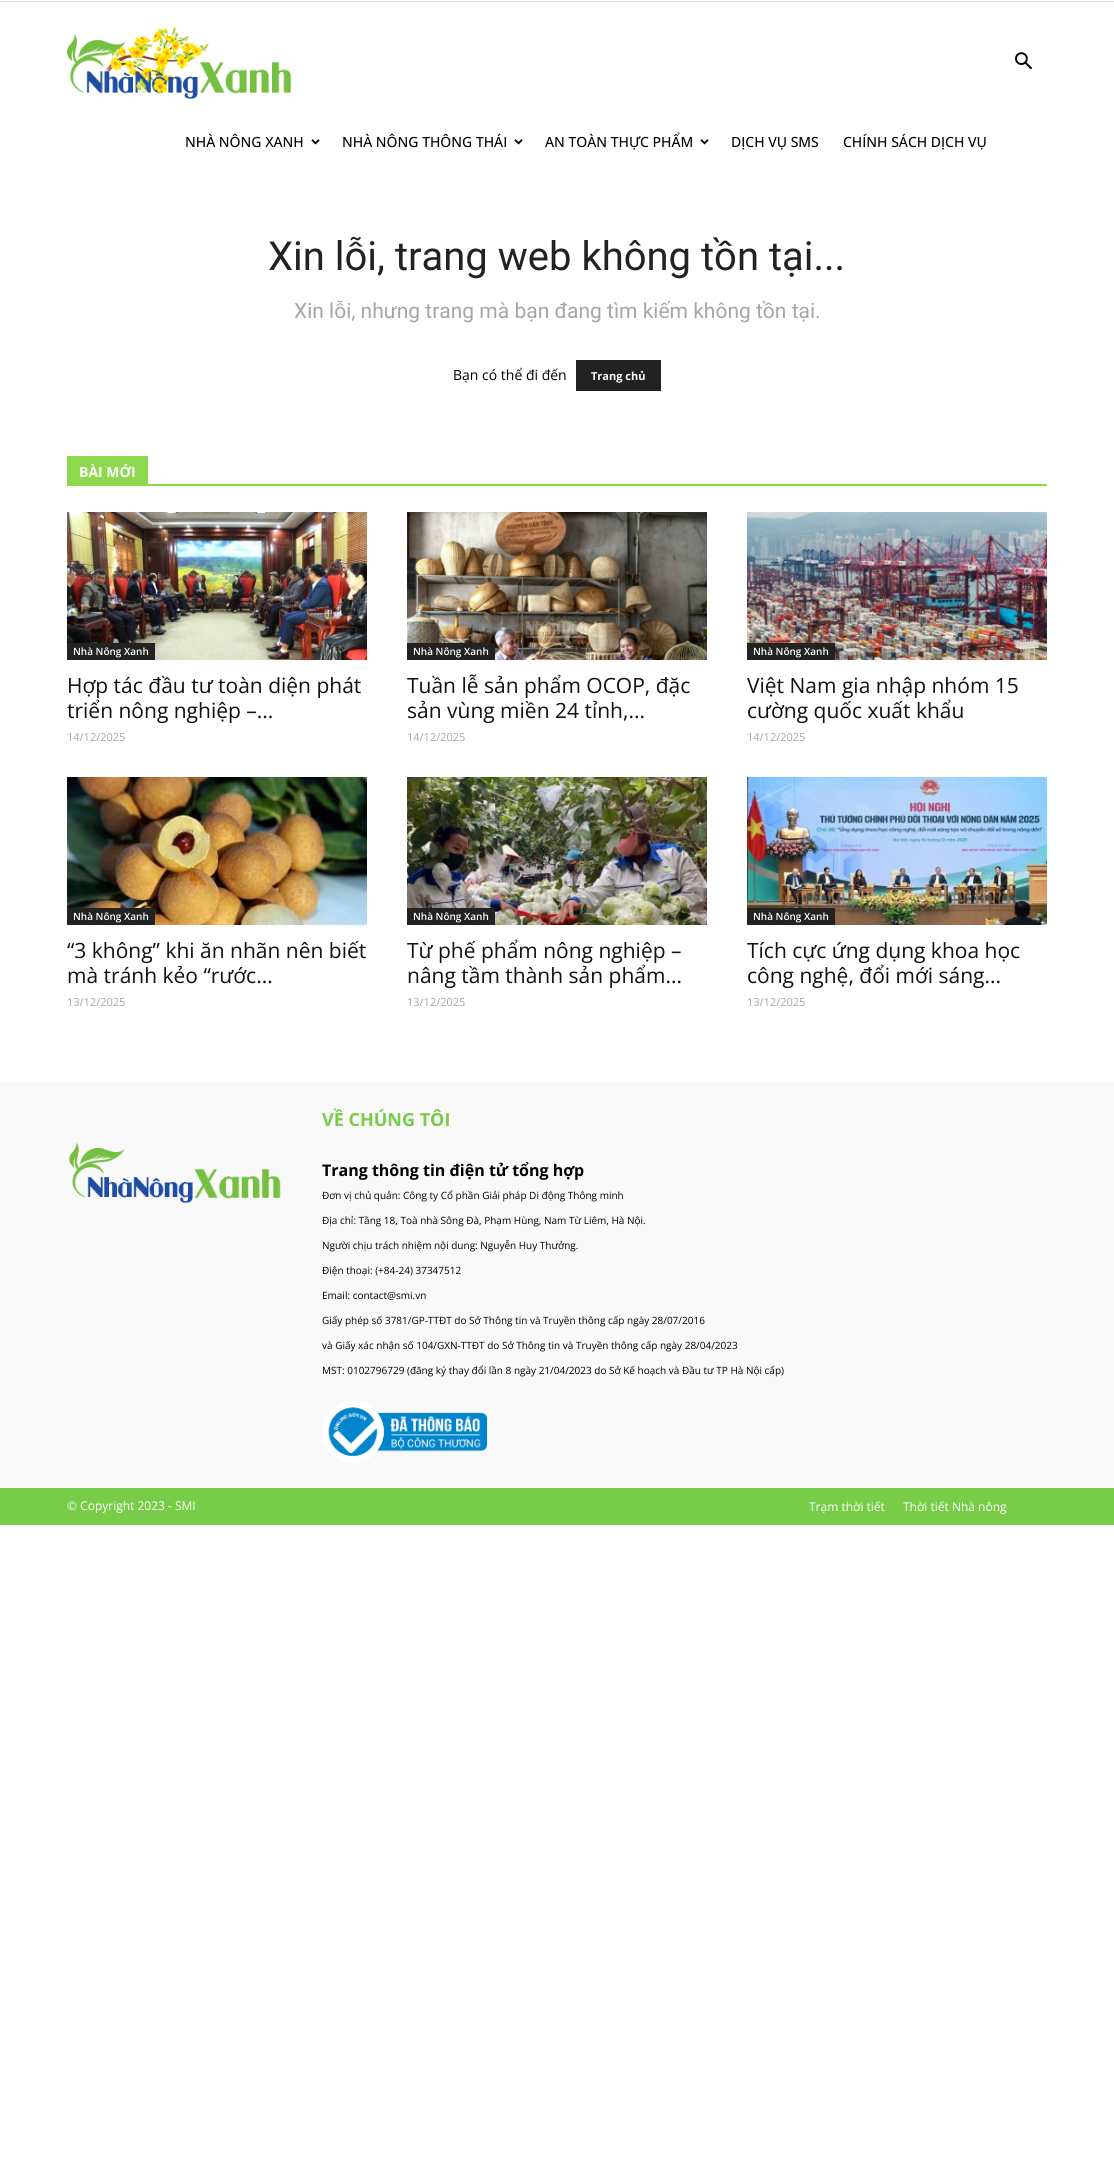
import math
import cairo

surface = cairo.ImageSurface(cairo.FORMAT_RGB24, 1114, 2181)
cr = cairo.Context(surface)
options = cairo.FontOptions()
options.set_hint_metrics(cairo.HINT_METRICS_OFF)
options.set_hint_style(cairo.HINT_STYLE_NONE)
cr.set_font_options(options)
cr.set_miter_limit(4)


def rgb(code):
    cr.set_source_rgb(*(v / 255 for v in bytes.fromhex(code[-6:])))


def image(path, x, y, w, h):
    cr.save()
    cr.set_source_surface(cairo.ImageSurface.create_from_png(path), x, y)
    cr.rectangle(x, y, w, h)
    cr.fill()
    cr.restore()


rgb("#ffffff")
cr.paint()
rgb("#e0e0e0")
cr.rectangle(0, 1, 1114, 1)
cr.fill()
image("img/1.png", 1015, 52, 17, 18)
image("img/2.png", 67, 26, 224, 74)
image("img/3.png", 311, 139, 9, 6)
image("img/3.png", 514, 139, 9, 6)
image("img/3.png", 700, 139, 9, 6)
for x, y, w, h, color in [
    (576, 360, 85, 31, "#222222"),
    (67, 484, 980, 2, "#8ed84e"),
    (67, 456, 81, 28, "#8ed84e"),
]:
    rgb(color)
    cr.rectangle(x, y, w, h)
    cr.fill()
image("img/4.png", 67, 512, 300, 148)
rgb("#222222")
cr.rectangle(67, 643, 88, 17)
cr.fill()
image("img/5.png", 407, 512, 300, 148)
cr.rectangle(407, 643, 88, 17)
cr.fill()
image("img/6.png", 747, 512, 300, 148)
cr.rectangle(747, 643, 88, 17)
cr.fill()
image("img/7.png", 67, 777, 300, 148)
cr.rectangle(67, 908, 88, 17)
cr.fill()
image("img/8.png", 407, 777, 300, 148)
cr.rectangle(407, 908, 88, 17)
cr.fill()
image("img/9.png", 747, 777, 300, 148)
cr.rectangle(747, 908, 88, 17)
cr.fill()
rgb("#f9f9f9")
cr.rectangle(0, 1082, 1114, 406)
cr.fill()
image("img/10.png", 69, 1142, 212, 62)
image("img/11.png", 322, 1401, 165, 61)
rgb("#77cc48")
cr.rectangle(0, 1488, 1114, 37)
cr.fill()
cr.select_font_face("Open Sans Medium")
cr.set_font_size(14)
rgb("#0a0303")
for x, y, s in [
    (185, 147, "NHÀ NÔNG XANH"),
    (342, 147, "NHÀ NÔNG THÔNG THÁI"),
    (545, 147, "AN TOÀN THỰC PHẨM"),
    (731, 147, "DỊCH VỤ SMS"),
    (843, 147, "CHÍNH SÁCH DỊCH VỤ"),
]:
    cr.move_to(x, y)
    cr.show_text(s)
cr.select_font_face("Roboto")
cr.set_font_size(40)
rgb("#222222")
cr.move_to(268, 270)
cr.show_text("Xin lỗi, trang web không tồn tại...")
cr.set_font_size(21)
rgb("#a6a6a6")
cr.move_to(294, 318)
cr.show_text("Xin lỗi, nhưng trang mà bạn đang tìm kiếm không tồn tại.")
cr.select_font_face("Open Sans")
cr.set_font_size(14)
rgb("#000000")
cr.move_to(453, 380)
cr.show_text("Bạn có thể đi đến")
cr.select_font_face("Open Sans", cairo.FONT_SLANT_NORMAL, cairo.FONT_WEIGHT_BOLD)
cr.set_font_size(11)
rgb("#ffffff")
cr.move_to(591, 380)
cr.show_text("Trang chủ")
cr.set_font_size(14)
cr.move_to(79, 477)
cr.show_text("BÀI MỚI")
cr.select_font_face("Open Sans SemiBold")
cr.set_font_size(10)
cr.move_to(73, 655)
cr.show_text("Nhà Nông Xanh")
cr.select_font_face("Open Sans")
cr.set_font_size(21)
rgb("#111111")
cr.move_to(67, 693)
cr.show_text("Hợp tác đầu tư toàn diện phát")
cr.move_to(67, 718)
cr.show_text("triển nông nghiệp –...")
cr.set_font_size(11)
rgb("#a6a6a6")
cr.move_to(67, 741)
cr.show_text("14/12/2025")
cr.select_font_face("Open Sans SemiBold")
cr.set_font_size(10)
rgb("#ffffff")
cr.move_to(413, 655)
cr.show_text("Nhà Nông Xanh")
cr.select_font_face("Open Sans")
cr.set_font_size(21)
rgb("#111111")
cr.move_to(407, 693)
cr.show_text("Tuần lễ sản phẩm OCOP, đặc")
cr.move_to(407, 718)
cr.show_text("sản vùng miền 24 tỉnh,...")
cr.set_font_size(11)
rgb("#a6a6a6")
cr.move_to(407, 741)
cr.show_text("14/12/2025")
cr.select_font_face("Open Sans SemiBold")
cr.set_font_size(10)
rgb("#ffffff")
cr.move_to(753, 655)
cr.show_text("Nhà Nông Xanh")
cr.select_font_face("Open Sans")
cr.set_font_size(21)
rgb("#111111")
cr.move_to(747, 693)
cr.show_text("Việt Nam gia nhập nhóm 15")
cr.move_to(747, 718)
cr.show_text("cường quốc xuất khẩu")
cr.set_font_size(11)
rgb("#a6a6a6")
cr.move_to(747, 741)
cr.show_text("14/12/2025")
cr.select_font_face("Open Sans SemiBold")
cr.set_font_size(10)
rgb("#ffffff")
cr.move_to(73, 920)
cr.show_text("Nhà Nông Xanh")
cr.select_font_face("Open Sans")
cr.set_font_size(21)
rgb("#111111")
cr.move_to(67, 958)
cr.show_text("“3 không” khi ăn nhãn nên biết")
cr.move_to(67, 983)
cr.show_text("mà tránh kẻo “rước...")
cr.set_font_size(11)
rgb("#a6a6a6")
cr.move_to(67, 1006)
cr.show_text("13/12/2025")
cr.select_font_face("Open Sans SemiBold")
cr.set_font_size(10)
rgb("#ffffff")
cr.move_to(413, 920)
cr.show_text("Nhà Nông Xanh")
cr.select_font_face("Open Sans")
cr.set_font_size(21)
rgb("#111111")
cr.move_to(407, 958)
cr.show_text("Từ phế phẩm nông nghiệp –")
cr.move_to(407, 983)
cr.show_text("nâng tầm thành sản phẩm...")
cr.set_font_size(11)
rgb("#a6a6a6")
cr.move_to(407, 1006)
cr.show_text("13/12/2025")
cr.select_font_face("Open Sans SemiBold")
cr.set_font_size(10)
rgb("#ffffff")
cr.move_to(753, 920)
cr.show_text("Nhà Nông Xanh")
cr.select_font_face("Open Sans")
cr.set_font_size(21)
rgb("#111111")
cr.move_to(747, 958)
cr.show_text("Tích cực ứng dụng khoa học")
cr.move_to(747, 983)
cr.show_text("công nghệ, đổi mới sáng...")
cr.set_font_size(11)
rgb("#a6a6a6")
cr.move_to(747, 1006)
cr.show_text("13/12/2025")
cr.select_font_face("Open Sans", cairo.FONT_SLANT_NORMAL, cairo.FONT_WEIGHT_BOLD)
cr.set_font_size(18)
rgb("#77cc48")
cr.move_to(322, 1126)
cr.show_text("VỀ CHÚNG TÔI")
cr.set_font_size(16)
rgb("#000000")
cr.move_to(322, 1176)
cr.show_text("Trang thông tin điện tử tổng hợp")
cr.select_font_face("Open Sans")
cr.set_font_size(10)
for x, y, s in [
    (322, 1199, "Đơn vị chủ quản: Công ty Cổ phần Giải pháp Di động Thông minh"),
    (322, 1224, "Địa chỉ: Tầng 18, Toà nhà Sông Đà, Phạm Hùng, Nam Từ Liêm, Hà Nội."),
    (322, 1249, "Người chịu trách nhiệm nội dung: Nguyễn Huy Thưởng."),
    (322, 1274, "Điện thoại: (+84-24) 37347512"),
    (322, 1299, "Email: contact@smi.vn"),
    (322, 1324, "Giấy phép số 3781/GP-TTĐT do Sở Thông tin và Truyền thông cấp ngày 28/07/2016"),
    (322, 1349, "và Giấy xác nhận số 104/GXN-TTĐT do Sở Thông tin và Truyền thông cấp ngày 28/04/2023"),
    (322, 1374, "MST: 0102796729 (đăng ký thay đổi lần 8 ngày 21/04/2023 do Sở Kế hoạch và Đầu tư TP Hà Nội cấp)"),
]:
    cr.move_to(x, y)
    cr.show_text(s)
cr.set_font_size(12)
rgb("#ffffff")
for x, y, s in [
    (67, 1510, "© Copyright 2023 - SMI"),
    (809, 1511, "Trạm thời tiết"),
    (903, 1511, "Thời tiết Nhà nông"),
]:
    cr.move_to(x, y)
    cr.show_text(s)
surface.write_to_png("page.png")
